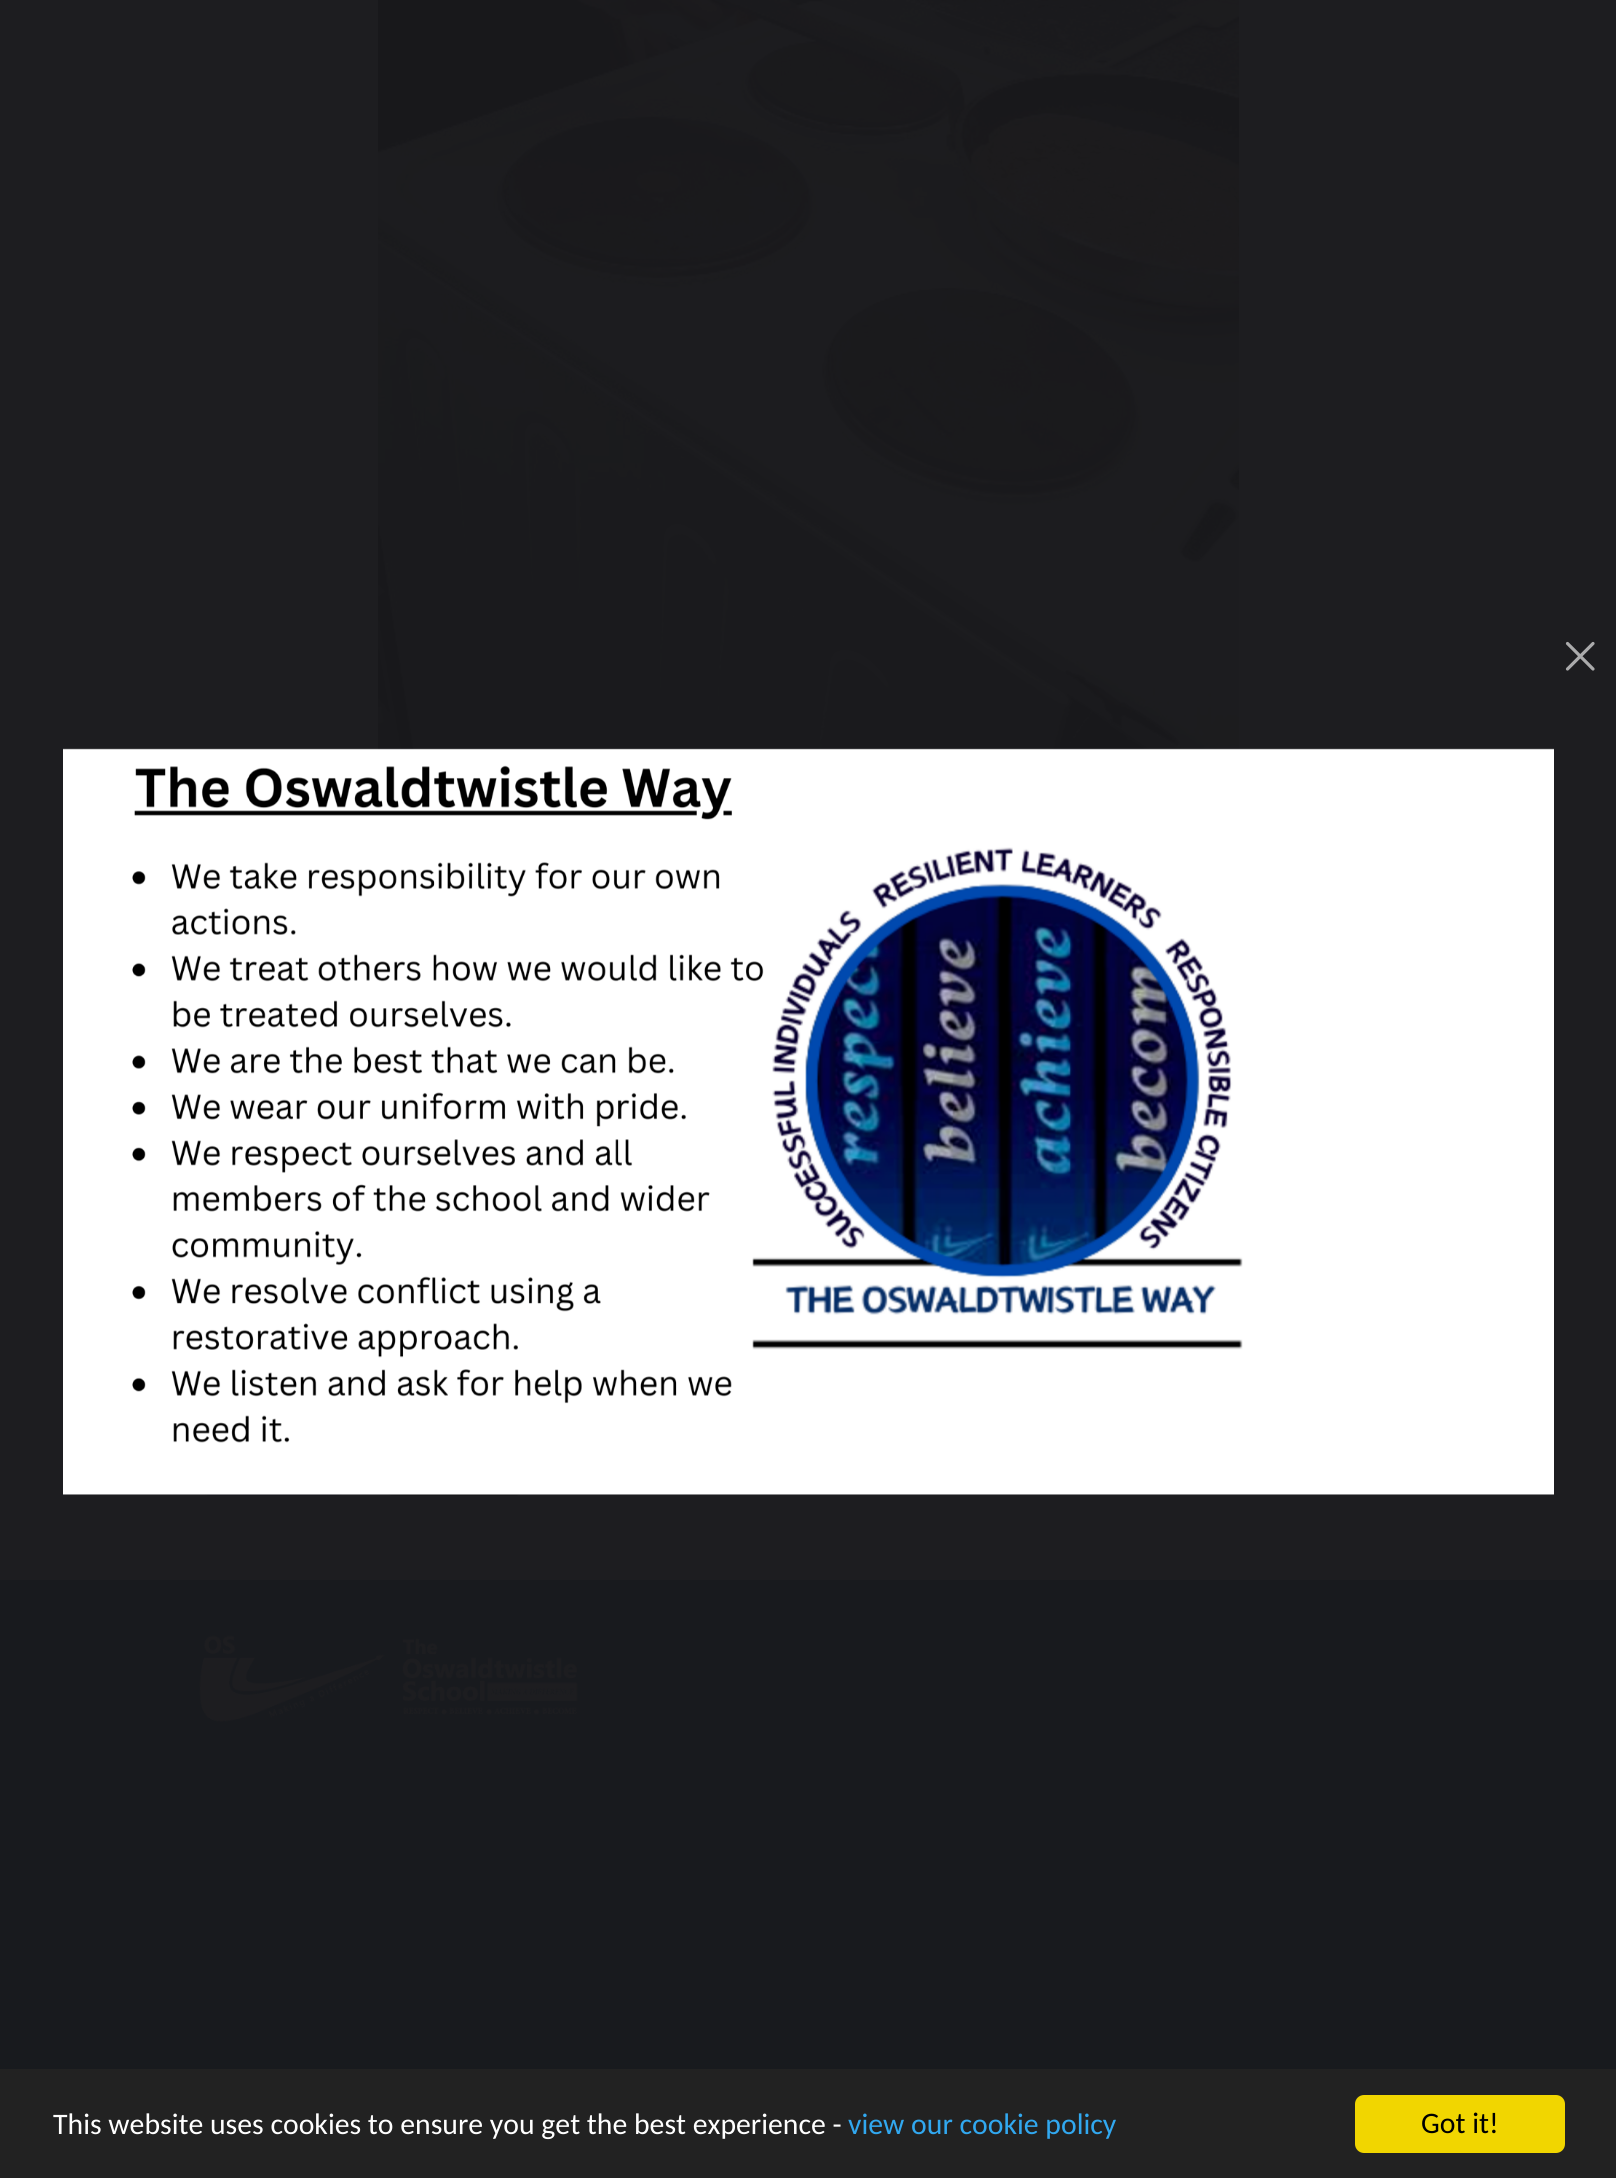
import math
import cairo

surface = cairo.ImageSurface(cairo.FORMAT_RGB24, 1616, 2178)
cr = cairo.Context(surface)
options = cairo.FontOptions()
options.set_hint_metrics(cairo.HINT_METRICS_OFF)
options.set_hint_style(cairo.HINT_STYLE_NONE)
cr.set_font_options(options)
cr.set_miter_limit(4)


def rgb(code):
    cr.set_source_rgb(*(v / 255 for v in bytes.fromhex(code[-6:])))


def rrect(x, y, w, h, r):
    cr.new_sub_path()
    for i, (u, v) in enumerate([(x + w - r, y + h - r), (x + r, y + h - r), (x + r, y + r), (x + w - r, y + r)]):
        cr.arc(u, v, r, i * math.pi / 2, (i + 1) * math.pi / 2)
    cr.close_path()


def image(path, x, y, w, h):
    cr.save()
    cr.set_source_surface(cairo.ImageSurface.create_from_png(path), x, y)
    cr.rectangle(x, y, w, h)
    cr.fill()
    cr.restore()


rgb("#1d1d20")
cr.paint()
image("img/1.png", 378, 0, 861, 750)
rrect(201, 1431, 145, 64, 10)
rgb("#19191e")
cr.stroke()
rrect(384, 1431, 140, 64, 10)
rgb("#18181b")
cr.stroke()
rgb("#181a1e")
cr.rectangle(0, 1580, 1616, 489)
cr.fill()
image("img/2.png", 199, 1635, 379, 87)
cr.new_path()
cr.move_to(1593, 669)
cr.line_to(1567.5, 643.5)
cr.move_to(1593, 643.5)
cr.line_to(1567.5, 669)
rgb("#ababac")
cr.set_line_width(3.2)
cr.set_line_cap(cairo.LINE_CAP_ROUND)
cr.set_line_join(cairo.LINE_JOIN_ROUND)
cr.stroke()
image("img/3.png", 63, 748, 1491, 747)
rgb("#222222")
cr.rectangle(0, 2069, 1616, 109)
cr.fill()
rgb("#f1d600")
rrect(1355, 2095, 210, 58, 9)
cr.fill()
cr.select_font_face("Carlito")
cr.set_font_size(29.75)
rgb("#ffffff")
cr.move_to(53, 2134)
cr.show_text("This website uses cookies to ensure you get the best experience -")
rgb("#31a8f0")
cr.move_to(848, 2134)
cr.show_text("view our cookie policy")
rgb("#000000")
cr.move_to(1421, 2133)
cr.show_text("Got it!")
surface.write_to_png("page.png")
